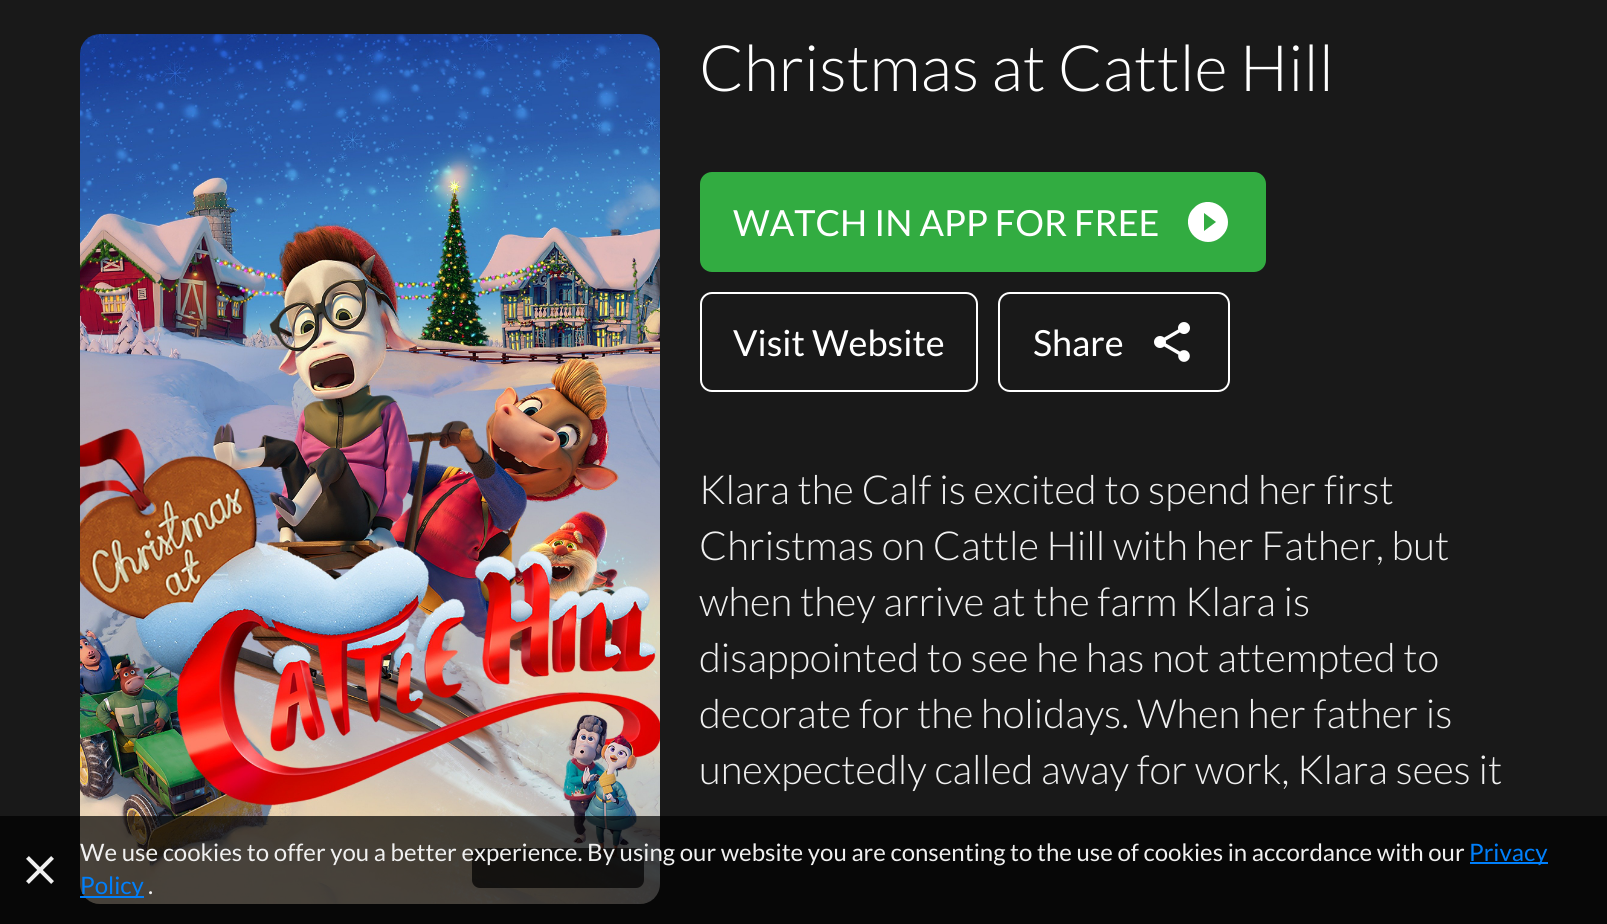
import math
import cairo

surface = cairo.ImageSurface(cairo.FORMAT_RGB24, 1607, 924)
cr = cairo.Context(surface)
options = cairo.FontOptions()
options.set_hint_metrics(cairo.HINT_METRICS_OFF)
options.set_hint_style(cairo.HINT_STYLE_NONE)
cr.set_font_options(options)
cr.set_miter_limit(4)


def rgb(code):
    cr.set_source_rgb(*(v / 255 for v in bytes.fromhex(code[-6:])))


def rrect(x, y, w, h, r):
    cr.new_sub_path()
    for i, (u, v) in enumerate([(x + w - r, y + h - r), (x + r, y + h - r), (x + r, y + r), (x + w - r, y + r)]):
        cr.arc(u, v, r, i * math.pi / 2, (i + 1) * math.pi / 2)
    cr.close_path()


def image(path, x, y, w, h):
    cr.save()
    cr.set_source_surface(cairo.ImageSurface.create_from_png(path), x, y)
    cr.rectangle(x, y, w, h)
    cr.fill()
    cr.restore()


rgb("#191919")
cr.paint()
image("img/1.png", 80, 34, 580, 870)
cr.set_source_rgba(0, 0, 0, 0.7)
rrect(472, 848, 172, 40, 8)
cr.fill()
rgb("#32ac41")
rrect(701, 173, 564, 98, 11)
cr.fill_preserve()
cr.stroke()
rgb("#ffffff")
cr.new_path()
cr.move_to(1204, 231)
cr.line_to(1216, 222)
cr.line_to(1204, 213)
cr.close_path()
cr.move_to(1194, 208)
cr.curve_to(1197, 204.5, 1201.5, 202.5, 1206, 202)
cr.curve_to(1224.5, 200.5, 1235.5, 223, 1222, 236)
cr.curve_to(1209, 249.5, 1186.5, 238.5, 1188, 220)
cr.curve_to(1188.5, 215.5, 1190.5, 211, 1194, 208)
cr.close_path()
cr.fill()
rrect(701, 293, 276, 98, 11)
cr.stroke()
rrect(999, 293, 230, 98, 11)
cr.stroke()
image("img/2.png", 1154, 322, 36, 40)
cr.set_source_rgba(0, 0, 0, 0.7)
cr.rectangle(0, 816, 1607, 108)
cr.fill()
image("img/3.png", 26, 856, 28, 28)
rgb("#007ffb")
cr.rectangle(1470, 862, 78, 2)
cr.fill()
cr.rectangle(80, 896, 64, 2)
cr.fill()
cr.select_font_face("Lato Light")
cr.set_font_size(64)
rgb("#ffffff")
cr.move_to(699, 91)
cr.show_text("Christmas at Cattle Hill")
cr.select_font_face("Lato")
cr.set_font_size(36)
for x, y, s in [
    (733, 236, "WATCH IN APP FOR FREE"),
    (733, 356, "Visit Website"),
    (1033, 356, "Share"),
]:
    cr.move_to(x, y)
    cr.show_text(s)
cr.select_font_face("Lato Light")
cr.set_font_size(40)
rgb("#f0f0f0")
for x, y, s in [
    (699, 504, "Klara the Calf is excited to spend her first"),
    (699, 560, "Christmas on Cattle Hill with her Father, but"),
    (699, 616, "when they arrive at the farm Klara is"),
    (699, 672, "disappointed to see he has not attempted to"),
    (699, 728, "decorate for the holidays. When her father is"),
    (699, 784, "unexpectedly called away for work, Klara sees it"),
]:
    cr.move_to(x, y)
    cr.show_text(s)
cr.select_font_face("Lato")
cr.set_font_size(24)
cr.move_to(80, 861)
cr.show_text("We use cookies to offer you a better experience. By using our website you are consenting to the use of cookies in accordance with our")
rgb("#007ffb")
cr.move_to(1469, 861)
cr.show_text("Privacy")
cr.move_to(80, 894)
cr.show_text("Policy")
rgb("#f0f0f0")
cr.move_to(148, 894)
cr.show_text(".")
surface.write_to_png("page.png")
